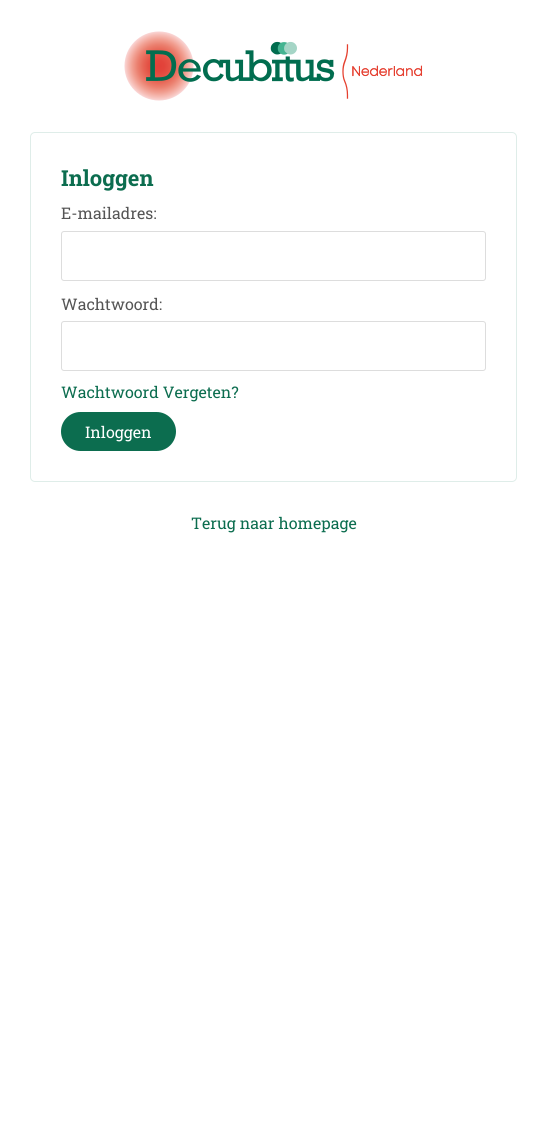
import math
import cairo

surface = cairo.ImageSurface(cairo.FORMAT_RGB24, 547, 1146)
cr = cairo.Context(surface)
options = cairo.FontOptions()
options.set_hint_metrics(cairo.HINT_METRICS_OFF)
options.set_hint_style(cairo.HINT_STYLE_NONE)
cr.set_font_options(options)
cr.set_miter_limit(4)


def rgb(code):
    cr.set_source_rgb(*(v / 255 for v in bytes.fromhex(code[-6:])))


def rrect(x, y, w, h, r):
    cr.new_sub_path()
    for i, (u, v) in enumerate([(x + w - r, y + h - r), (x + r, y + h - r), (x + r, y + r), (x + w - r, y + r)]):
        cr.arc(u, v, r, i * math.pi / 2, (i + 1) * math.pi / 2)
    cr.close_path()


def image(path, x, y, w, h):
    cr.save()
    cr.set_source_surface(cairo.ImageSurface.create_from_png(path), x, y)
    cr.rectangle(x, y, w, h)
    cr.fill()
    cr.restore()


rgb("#ffffff")
cr.paint()
image("img/1.png", 124, 31, 299, 70)
rrect(30.5, 132.5, 486, 349, 4.5)
rgb("#dfede9")
cr.set_line_width(1)
cr.stroke()
rrect(61.5, 231.5, 424, 49, 2.5)
rgb("#dddddd")
cr.stroke()
rrect(61.5, 321.5, 424, 49, 2.5)
cr.stroke()
rgb("#0c6d4f")
rrect(62, 413, 113, 37, 18.5)
cr.fill_preserve()
cr.set_line_width(2)
cr.stroke()
cr.select_font_face("Roboto Slab", cairo.FONT_SLANT_NORMAL, cairo.FONT_WEIGHT_BOLD)
cr.set_font_size(22)
cr.move_to(61, 186)
cr.show_text("Inloggen")
cr.select_font_face("Roboto Slab")
cr.set_font_size(16)
rgb("#555555")
cr.move_to(61, 219)
cr.show_text("E-mailadres:")
cr.move_to(61, 310)
cr.show_text("Wachtwoord:")
rgb("#0c6d4f")
cr.move_to(61, 398)
cr.show_text("Wachtwoord Vergeten?")
rgb("#ffffff")
cr.move_to(85, 438)
cr.show_text("Inloggen")
rgb("#0c6d4f")
cr.move_to(191, 529)
cr.show_text("Terug naar homepage")
surface.write_to_png("page.png")
